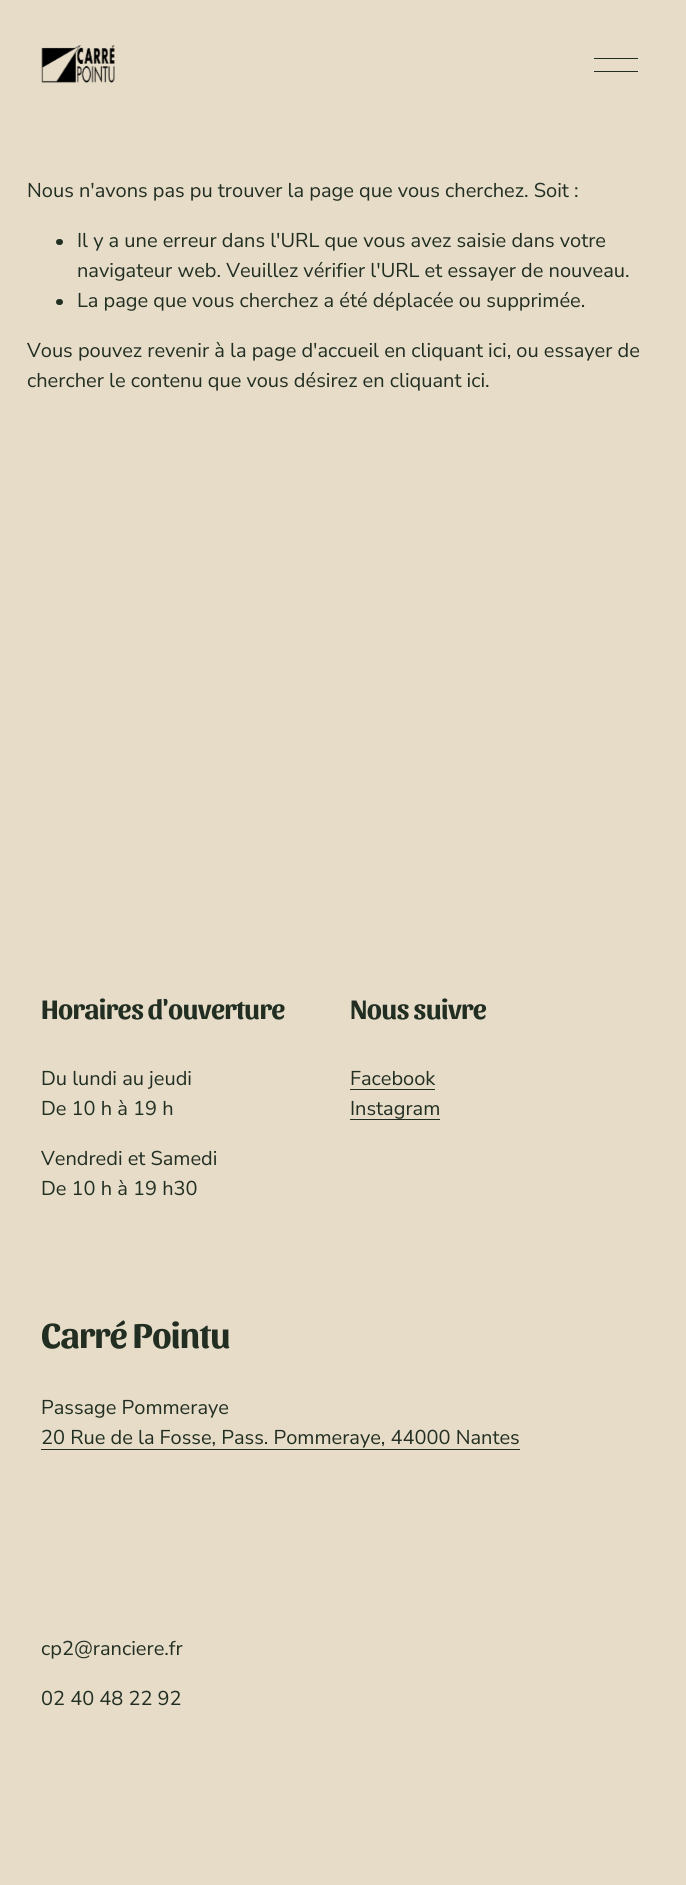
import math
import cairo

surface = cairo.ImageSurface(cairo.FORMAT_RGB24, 686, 1885)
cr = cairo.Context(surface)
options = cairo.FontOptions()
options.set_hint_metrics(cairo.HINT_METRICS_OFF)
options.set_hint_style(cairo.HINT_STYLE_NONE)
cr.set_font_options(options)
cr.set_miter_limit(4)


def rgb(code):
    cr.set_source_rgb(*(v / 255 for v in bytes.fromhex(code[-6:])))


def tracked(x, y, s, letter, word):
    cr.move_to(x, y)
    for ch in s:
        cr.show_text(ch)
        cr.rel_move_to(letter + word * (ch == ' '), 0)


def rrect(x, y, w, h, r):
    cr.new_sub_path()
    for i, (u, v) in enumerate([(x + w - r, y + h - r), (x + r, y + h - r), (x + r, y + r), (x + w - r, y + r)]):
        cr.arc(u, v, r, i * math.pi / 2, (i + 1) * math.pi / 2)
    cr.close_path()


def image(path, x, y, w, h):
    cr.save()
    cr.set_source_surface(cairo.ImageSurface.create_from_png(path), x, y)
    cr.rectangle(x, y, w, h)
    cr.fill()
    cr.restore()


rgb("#e6dcc8")
cr.paint()
image("img/1.png", 41, 45, 74, 38)
rgb("#212e21")
cr.rectangle(594, 58, 44, 1)
cr.fill()
cr.rectangle(594, 71, 44, 1)
cr.fill()
rrect(56, 239, 7, 6, 3)
cr.fill()
rrect(56, 299, 7, 6, 3)
cr.fill()
for x, y, w, h, color in [
    (350, 1089, 85, 1, "#212e21"),
    (350, 1119, 90, 1, "#212e21"),
    (41, 1449, 479, 1, "#212e21"),
]:
    rgb(color)
    cr.rectangle(x, y, w, h)
    cr.fill()
cr.select_font_face("Nunito Sans")
cr.set_font_size(20)
for x, y, s in [
    (27, 197, "Nous n'avons pas pu trouver la page que vous cherchez. Soit :"),
    (77, 247, "Il y a une erreur dans l'URL que vous avez saisie dans votre"),
    (77, 277, "navigateur web. Veuillez vérifier l'URL et essayer de nouveau."),
    (77, 307, "La page que vous cherchez a été déplacée ou supprimée."),
    (27, 357, "Vous pouvez revenir à la page d'accueil en cliquant ici, ou essayer de"),
    (27, 387, "chercher le contenu que vous désirez en cliquant ici."),
]:
    cr.move_to(x, y)
    cr.show_text(s)
cr.select_font_face("Sansita", cairo.FONT_SLANT_NORMAL, cairo.FONT_WEIGHT_BOLD)
cr.set_font_size(28)
tracked(41, 1019, "Horaires d'ouverture", -0.6, 0)
cr.select_font_face("Nunito Sans")
cr.set_font_size(20)
for x, y, s in [
    (41, 1085, "Du lundi au jeudi"),
    (41, 1115, "De 10 h à 19 h"),
    (41, 1165, "Vendredi et Samedi"),
    (41, 1195, "De 10 h à 19 h30"),
]:
    cr.move_to(x, y)
    cr.show_text(s)
cr.select_font_face("Sansita", cairo.FONT_SLANT_NORMAL, cairo.FONT_WEIGHT_BOLD)
cr.set_font_size(28)
tracked(350, 1019, "Nous suivre", -0.6, 0)
cr.select_font_face("Nunito Sans")
cr.set_font_size(20)
cr.move_to(350, 1085)
cr.show_text("Facebook")
cr.move_to(350, 1115)
cr.show_text("Instagram")
cr.select_font_face("Sansita", cairo.FONT_SLANT_NORMAL, cairo.FONT_WEIGHT_BOLD)
cr.set_font_size(36.25)
tracked(41, 1348, "Carré Pointu", -0.75, 0)
cr.select_font_face("Nunito Sans")
cr.set_font_size(20)
for x, y, s in [
    (41, 1414, "Passage Pommeraye"),
    (41, 1444, "20 Rue de la Fosse, Pass. Pommeraye, 44000 Nantes"),
    (41, 1655, "cp2@ranciere.fr"),
    (41, 1705, "02 40 48 22 92"),
]:
    cr.move_to(x, y)
    cr.show_text(s)
surface.write_to_png("page.png")
